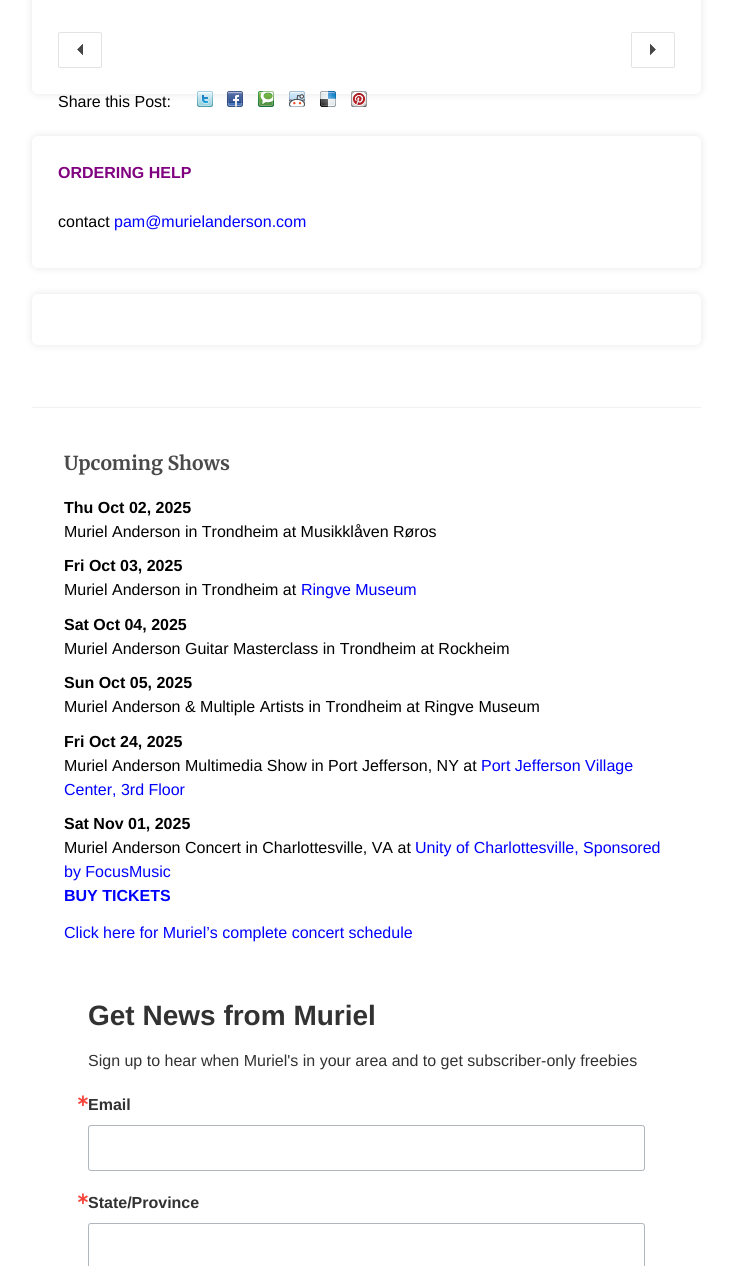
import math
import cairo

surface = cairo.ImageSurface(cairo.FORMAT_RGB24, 733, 1266)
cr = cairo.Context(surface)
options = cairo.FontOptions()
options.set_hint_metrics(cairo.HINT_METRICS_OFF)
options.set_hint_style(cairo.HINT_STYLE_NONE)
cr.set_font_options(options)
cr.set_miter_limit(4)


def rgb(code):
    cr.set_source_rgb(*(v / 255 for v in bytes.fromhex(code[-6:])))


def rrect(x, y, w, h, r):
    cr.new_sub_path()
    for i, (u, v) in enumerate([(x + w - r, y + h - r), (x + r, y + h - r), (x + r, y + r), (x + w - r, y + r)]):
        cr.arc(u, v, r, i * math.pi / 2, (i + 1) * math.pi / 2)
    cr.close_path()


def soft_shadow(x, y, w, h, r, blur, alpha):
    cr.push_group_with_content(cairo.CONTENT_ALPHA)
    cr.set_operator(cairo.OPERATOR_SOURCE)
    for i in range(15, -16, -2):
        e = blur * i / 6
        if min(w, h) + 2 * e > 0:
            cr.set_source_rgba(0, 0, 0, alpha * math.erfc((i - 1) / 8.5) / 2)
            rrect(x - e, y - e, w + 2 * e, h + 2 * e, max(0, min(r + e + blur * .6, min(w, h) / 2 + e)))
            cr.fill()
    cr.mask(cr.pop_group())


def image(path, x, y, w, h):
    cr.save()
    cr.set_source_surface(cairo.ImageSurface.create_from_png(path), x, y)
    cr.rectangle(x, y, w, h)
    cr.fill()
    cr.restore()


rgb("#ffffff")
cr.paint()
rgb("#000000")
soft_shadow(32, -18, 669, 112, 6, 4, 0.1)
rgb("#ffffff")
rrect(32, -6, 669, 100, 6)
cr.fill()
image("img/1.png", 77, 44, 6, 11)
rrect(58.5, 32.5, 43, 35, 1.5)
rgb("#e3e3e3")
cr.set_line_width(1)
cr.stroke()
image("img/2.png", 650, 44, 6, 11)
rrect(631.5, 32.5, 43, 35, 1.5)
cr.stroke()
image("img/3.png", 197, 91, 16, 16)
image("img/4.png", 227, 91, 16, 16)
image("img/5.png", 258, 91, 16, 16)
image("img/6.png", 289, 91, 16, 16)
image("img/7.png", 320, 91, 16, 16)
image("img/8.png", 351, 91, 16, 16)
rgb("#000000")
soft_shadow(32, 136, 669, 132, 6, 4, 0.1)
rgb("#ffffff")
rrect(32, 136, 669, 132, 6)
cr.fill()
rgb("#000000")
soft_shadow(32, 294, 669, 51, 6, 4, 0.1)
rgb("#ffffff")
rrect(32, 294, 669, 51, 6)
cr.fill()
rgb("#f1f1f1")
cr.rectangle(32, 407, 669, 1)
cr.fill()
rrect(88.5, 1125.5, 556, 45, 2.5)
rgb("#b0b6bb")
cr.stroke()
rrect(88.5, 1223.5, 556, 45, 2.5)
cr.stroke()
cr.select_font_face("Liberation Sans")
cr.set_font_size(16)
rgb("#000000")
cr.move_to(58, 107)
cr.show_text("Share this Post:")
cr.select_font_face("Liberation Sans", cairo.FONT_SLANT_NORMAL, cairo.FONT_WEIGHT_BOLD)
rgb("#800080")
cr.move_to(58, 178)
cr.show_text("ORDERING HELP")
cr.select_font_face("Liberation Sans")
rgb("#000000")
cr.move_to(58, 227)
cr.show_text("contact")
rgb("#0000ff")
cr.move_to(114, 227)
cr.show_text("pam@murielanderson.com")
cr.select_font_face("Merriweather", cairo.FONT_SLANT_NORMAL, cairo.FONT_WEIGHT_BOLD)
cr.set_font_size(19.25)
rgb("#4a4a4a")
cr.move_to(64, 470)
cr.show_text("Upcoming Shows")
cr.select_font_face("Liberation Sans", cairo.FONT_SLANT_NORMAL, cairo.FONT_WEIGHT_BOLD)
cr.set_font_size(16)
rgb("#000000")
cr.move_to(64, 513)
cr.show_text("Thu Oct 02, 2025")
cr.select_font_face("Liberation Sans")
cr.move_to(64, 537)
cr.show_text("Muriel Anderson in Trondheim at Musikklåven Røros")
cr.select_font_face("Liberation Sans", cairo.FONT_SLANT_NORMAL, cairo.FONT_WEIGHT_BOLD)
cr.move_to(64, 571)
cr.show_text("Fri Oct 03, 2025")
cr.select_font_face("Liberation Sans")
cr.move_to(64, 595)
cr.show_text("Muriel Anderson in Trondheim at")
rgb("#0000ff")
cr.move_to(301, 595)
cr.show_text("Ringve Museum")
cr.select_font_face("Liberation Sans", cairo.FONT_SLANT_NORMAL, cairo.FONT_WEIGHT_BOLD)
rgb("#000000")
cr.move_to(64, 630)
cr.show_text("Sat Oct 04, 2025")
cr.select_font_face("Liberation Sans")
cr.move_to(64, 654)
cr.show_text("Muriel Anderson Guitar Masterclass in Trondheim at Rockheim")
cr.select_font_face("Liberation Sans", cairo.FONT_SLANT_NORMAL, cairo.FONT_WEIGHT_BOLD)
cr.move_to(64, 688)
cr.show_text("Sun Oct 05, 2025")
cr.select_font_face("Liberation Sans")
cr.move_to(64, 712)
cr.show_text("Muriel Anderson & Multiple Artists in Trondheim at Ringve Museum")
cr.select_font_face("Liberation Sans", cairo.FONT_SLANT_NORMAL, cairo.FONT_WEIGHT_BOLD)
cr.move_to(64, 747)
cr.show_text("Fri Oct 24, 2025")
cr.select_font_face("Liberation Sans")
cr.move_to(64, 771)
cr.show_text("Muriel Anderson Multimedia Show in Port Jefferson, NY at")
rgb("#0000ff")
cr.move_to(481, 771)
cr.show_text("Port Jefferson Village")
cr.move_to(64, 795)
cr.show_text("Center, 3rd Floor")
cr.select_font_face("Liberation Sans", cairo.FONT_SLANT_NORMAL, cairo.FONT_WEIGHT_BOLD)
rgb("#000000")
cr.move_to(64, 829)
cr.show_text("Sat Nov 01, 2025")
cr.select_font_face("Liberation Sans")
cr.move_to(64, 853)
cr.show_text("Muriel Anderson Concert in Charlottesville, VA at")
rgb("#0000ff")
cr.move_to(415, 853)
cr.show_text("Unity of Charlottesville, Sponsored")
cr.move_to(64, 877)
cr.show_text("by FocusMusic")
cr.select_font_face("Liberation Sans", cairo.FONT_SLANT_NORMAL, cairo.FONT_WEIGHT_BOLD)
cr.move_to(64, 901)
cr.show_text("BUY TICKETS")
cr.select_font_face("Liberation Sans")
cr.move_to(64, 938)
cr.show_text("Click here for Muriel’s complete concert schedule")
cr.select_font_face("Liberation Sans", cairo.FONT_SLANT_NORMAL, cairo.FONT_WEIGHT_BOLD)
cr.set_font_size(28)
rgb("#323232")
cr.move_to(88, 1025)
cr.show_text("Get News from Muriel")
cr.select_font_face("Liberation Sans")
cr.set_font_size(16)
cr.move_to(88, 1066)
cr.show_text("Sign up to hear when Muriel's in your area and to get subscriber-only freebies")
cr.select_font_face("DejaVu Sans", cairo.FONT_SLANT_NORMAL, cairo.FONT_WEIGHT_BOLD)
rgb("#f5463b")
cr.move_to(76, 1106)
cr.show_text("∗")
cr.select_font_face("Liberation Sans", cairo.FONT_SLANT_NORMAL, cairo.FONT_WEIGHT_BOLD)
rgb("#323232")
cr.move_to(88, 1110)
cr.show_text("Email")
cr.select_font_face("DejaVu Sans", cairo.FONT_SLANT_NORMAL, cairo.FONT_WEIGHT_BOLD)
rgb("#f5463b")
cr.move_to(76, 1204)
cr.show_text("∗")
cr.select_font_face("Liberation Sans", cairo.FONT_SLANT_NORMAL, cairo.FONT_WEIGHT_BOLD)
rgb("#323232")
cr.move_to(88, 1208)
cr.show_text("State/Province")
surface.write_to_png("page.png")
